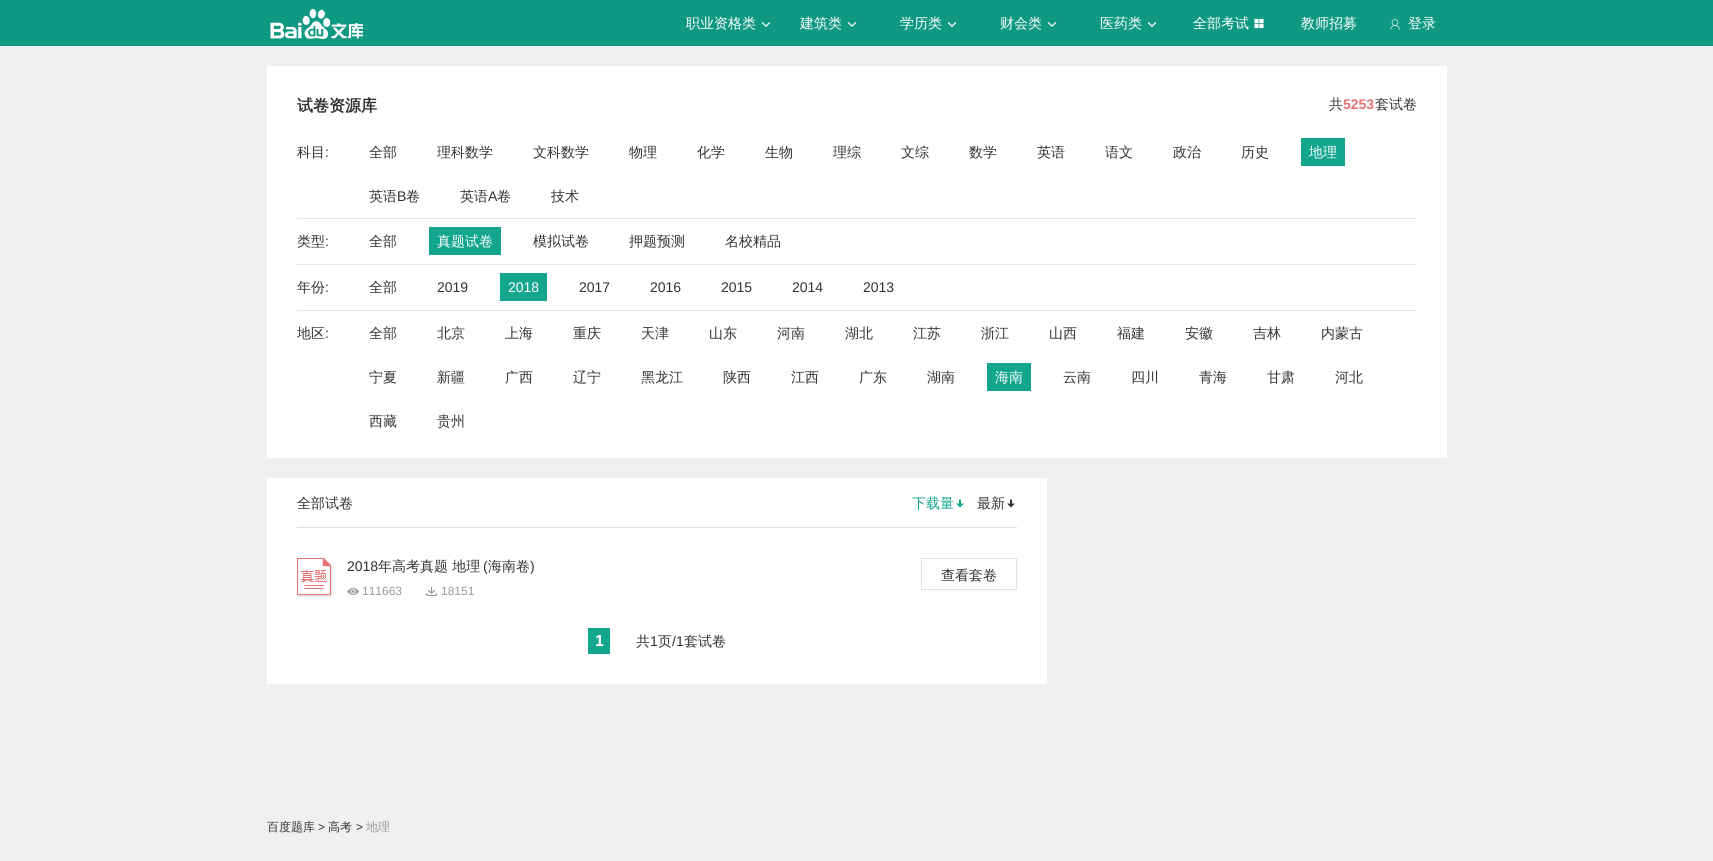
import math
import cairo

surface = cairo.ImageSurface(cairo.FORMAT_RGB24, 1713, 861)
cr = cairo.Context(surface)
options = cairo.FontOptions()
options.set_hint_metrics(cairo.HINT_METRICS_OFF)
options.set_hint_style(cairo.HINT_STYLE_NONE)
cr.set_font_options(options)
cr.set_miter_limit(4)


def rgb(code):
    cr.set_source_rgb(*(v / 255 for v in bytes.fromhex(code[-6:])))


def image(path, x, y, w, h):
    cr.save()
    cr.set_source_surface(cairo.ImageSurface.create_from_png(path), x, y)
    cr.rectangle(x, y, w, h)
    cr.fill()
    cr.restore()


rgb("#f0f0f0")
cr.paint()
rgb("#0f9982")
cr.rectangle(0, 0, 1713, 46)
cr.fill()
image("img/1.png", 270, 9, 93, 30)
image("img/2.png", 761, 22, 10, 5)
image("img/2.png", 847, 22, 10, 5)
image("img/2.png", 947, 22, 10, 5)
image("img/2.png", 1047, 22, 10, 5)
image("img/2.png", 1147, 22, 10, 5)
image("img/3.png", 1254, 18, 10, 11)
image("img/4.png", 1390, 19, 10, 11)
for x, y, w, h, color in [
    (267, 66, 1180, 392, "#ffffff"),
    (297, 218, 1120, 1, "#e5e5e5"),
    (1301, 138, 44, 28, "#11a68d"),
    (297, 264, 1120, 1, "#e5e5e5"),
    (429, 227, 72, 28, "#11a68d"),
    (297, 310, 1120, 1, "#e5e5e5"),
    (500, 273, 47, 28, "#11a68d"),
    (987, 363, 44, 28, "#11a68d"),
    (267, 478, 780, 206, "#ffffff"),
    (297, 527, 720, 1, "#e0e0e0"),
]:
    rgb(color)
    cr.rectangle(x, y, w, h)
    cr.fill()
image("img/5.png", 956, 499, 8, 9)
image("img/6.png", 1007, 499, 8, 9)
image("img/7.png", 297, 558, 35, 39)
image("img/8.png", 347, 588, 12, 7)
image("img/9.png", 426, 587, 11, 9)
cr.rectangle(921.5, 558.5, 95, 31)
cr.set_line_width(1)
cr.stroke()
rgb("#11a68d")
cr.rectangle(588, 628, 22, 26)
cr.fill()
cr.select_font_face("WenQuanYi Zen Hei Medium")
cr.set_font_size(14)
rgb("#ffffff")
for x, y, s in [
    (686, 28, "职业资格类"),
    (800, 28, "建筑类"),
    (900, 28, "学历类"),
    (1000, 28, "财会类"),
    (1100, 28, "医药类"),
    (1193, 28, "全部考试"),
    (1301, 28, "教师招募"),
    (1408, 28, "登录"),
]:
    cr.move_to(x, y)
    cr.show_text(s)
cr.select_font_face("WenQuanYi Zen Hei", cairo.FONT_SLANT_NORMAL, cairo.FONT_WEIGHT_BOLD)
cr.set_font_size(16)
rgb("#333333")
cr.move_to(297, 111)
cr.show_text("试卷资源库")
cr.select_font_face("WenQuanYi Zen Hei Medium")
cr.set_font_size(14)
cr.move_to(1329, 109)
cr.show_text("共")
cr.select_font_face("Liberation Sans", cairo.FONT_SLANT_NORMAL, cairo.FONT_WEIGHT_BOLD)
rgb("#e57373")
cr.move_to(1343, 109)
cr.show_text("5253")
cr.select_font_face("WenQuanYi Zen Hei Medium")
rgb("#333333")
cr.move_to(1375, 109)
cr.show_text("套试卷")
cr.move_to(297, 157)
cr.show_text("科目")
cr.select_font_face("Liberation Sans")
cr.move_to(325, 157)
cr.show_text(":")
cr.select_font_face("WenQuanYi Zen Hei Medium")
for x, y, s in [
    (369, 157, "全部"),
    (437, 157, "理科数学"),
    (533, 157, "文科数学"),
    (629, 157, "物理"),
    (697, 157, "化学"),
    (765, 157, "生物"),
    (833, 157, "理综"),
    (901, 157, "文综"),
    (969, 157, "数学"),
    (1037, 157, "英语"),
    (1105, 157, "语文"),
    (1173, 157, "政治"),
    (1241, 157, "历史"),
]:
    cr.move_to(x, y)
    cr.show_text(s)
rgb("#ffffff")
cr.move_to(1309, 157)
cr.show_text("地理")
rgb("#333333")
cr.move_to(369, 201)
cr.show_text("英语")
cr.select_font_face("Liberation Sans")
cr.move_to(397, 201)
cr.show_text("B")
cr.select_font_face("WenQuanYi Zen Hei Medium")
cr.move_to(406, 201)
cr.show_text("卷")
cr.move_to(460, 201)
cr.show_text("英语")
cr.select_font_face("Liberation Sans")
cr.move_to(488, 201)
cr.show_text("A")
cr.select_font_face("WenQuanYi Zen Hei Medium")
for x, y, s in [
    (497, 201, "卷"),
    (551, 201, "技术"),
    (297, 246, "类型"),
]:
    cr.move_to(x, y)
    cr.show_text(s)
cr.select_font_face("Liberation Sans")
cr.move_to(325, 246)
cr.show_text(":")
cr.select_font_face("WenQuanYi Zen Hei Medium")
cr.move_to(369, 246)
cr.show_text("全部")
rgb("#ffffff")
cr.move_to(437, 246)
cr.show_text("真题试卷")
rgb("#333333")
for x, y, s in [
    (533, 246, "模拟试卷"),
    (629, 246, "押题预测"),
    (725, 246, "名校精品"),
    (297, 292, "年份"),
]:
    cr.move_to(x, y)
    cr.show_text(s)
cr.select_font_face("Liberation Sans")
cr.move_to(325, 292)
cr.show_text(":")
cr.select_font_face("WenQuanYi Zen Hei Medium")
cr.move_to(369, 292)
cr.show_text("全部")
cr.select_font_face("Liberation Sans")
cr.move_to(437, 292)
cr.show_text("2019")
rgb("#ffffff")
cr.move_to(508, 292)
cr.show_text("2018")
rgb("#333333")
for x, y, s in [
    (579, 292, "2017"),
    (650, 292, "2016"),
    (721, 292, "2015"),
    (792, 292, "2014"),
    (863, 292, "2013"),
]:
    cr.move_to(x, y)
    cr.show_text(s)
cr.select_font_face("WenQuanYi Zen Hei Medium")
cr.move_to(297, 338)
cr.show_text("地区")
cr.select_font_face("Liberation Sans")
cr.move_to(325, 338)
cr.show_text(":")
cr.select_font_face("WenQuanYi Zen Hei Medium")
for x, y, s in [
    (369, 338, "全部"),
    (437, 338, "北京"),
    (505, 338, "上海"),
    (573, 338, "重庆"),
    (641, 338, "天津"),
    (709, 338, "山东"),
    (777, 338, "河南"),
    (845, 338, "湖北"),
    (913, 338, "江苏"),
    (981, 338, "浙江"),
    (1049, 338, "山西"),
    (1117, 338, "福建"),
    (1185, 338, "安徽"),
    (1253, 338, "吉林"),
    (1321, 338, "内蒙古"),
    (369, 382, "宁夏"),
    (437, 382, "新疆"),
    (505, 382, "广西"),
    (573, 382, "辽宁"),
    (641, 382, "黑龙江"),
    (723, 382, "陕西"),
    (791, 382, "江西"),
    (859, 382, "广东"),
    (927, 382, "湖南"),
]:
    cr.move_to(x, y)
    cr.show_text(s)
rgb("#ffffff")
cr.move_to(995, 382)
cr.show_text("海南")
rgb("#333333")
for x, y, s in [
    (1063, 382, "云南"),
    (1131, 382, "四川"),
    (1199, 382, "青海"),
    (1267, 382, "甘肃"),
    (1335, 382, "河北"),
    (369, 426, "西藏"),
    (437, 426, "贵州"),
    (297, 508, "全部试卷"),
]:
    cr.move_to(x, y)
    cr.show_text(s)
rgb("#11a68d")
cr.move_to(912, 508)
cr.show_text("下载量")
rgb("#333333")
cr.move_to(977, 508)
cr.show_text("最新")
cr.select_font_face("Liberation Sans")
cr.move_to(347, 571)
cr.show_text("2018")
cr.select_font_face("WenQuanYi Zen Hei Medium")
cr.move_to(378, 571)
cr.show_text("年高考真题 地理")
cr.select_font_face("Liberation Sans")
cr.move_to(483, 571)
cr.show_text("(")
cr.select_font_face("WenQuanYi Zen Hei Medium")
cr.move_to(488, 571)
cr.show_text("海南卷")
cr.select_font_face("Liberation Sans")
cr.move_to(530, 571)
cr.show_text(")")
cr.set_font_size(12)
rgb("#999999")
cr.move_to(362, 595)
cr.show_text("111663")
cr.move_to(441, 595)
cr.show_text("18151")
cr.select_font_face("WenQuanYi Zen Hei Medium")
cr.set_font_size(14)
rgb("#333333")
cr.move_to(941, 580)
cr.show_text("查看套卷")
cr.select_font_face("Liberation Sans", cairo.FONT_SLANT_NORMAL, cairo.FONT_WEIGHT_BOLD)
cr.set_font_size(16)
rgb("#ffffff")
cr.move_to(595, 646)
cr.show_text("1")
cr.select_font_face("WenQuanYi Zen Hei Medium")
cr.set_font_size(14)
rgb("#333333")
cr.move_to(636, 646)
cr.show_text("共")
cr.select_font_face("Liberation Sans")
cr.move_to(650, 646)
cr.show_text("1")
cr.select_font_face("WenQuanYi Zen Hei Medium")
cr.move_to(658, 646)
cr.show_text("页")
cr.select_font_face("Liberation Sans")
cr.move_to(672, 646)
cr.show_text("/1")
cr.select_font_face("WenQuanYi Zen Hei Medium")
cr.move_to(684, 646)
cr.show_text("套试卷")
cr.set_font_size(12)
cr.move_to(267, 831)
cr.show_text("百度题库")
cr.select_font_face("Liberation Sans")
cr.move_to(318, 831)
cr.show_text(">")
cr.select_font_face("WenQuanYi Zen Hei Medium")
cr.move_to(328, 831)
cr.show_text("高考")
cr.select_font_face("Liberation Sans")
cr.move_to(356, 831)
cr.show_text(">")
cr.select_font_face("WenQuanYi Zen Hei Medium")
rgb("#999999")
cr.move_to(366, 831)
cr.show_text("地理")
surface.write_to_png("page.png")
